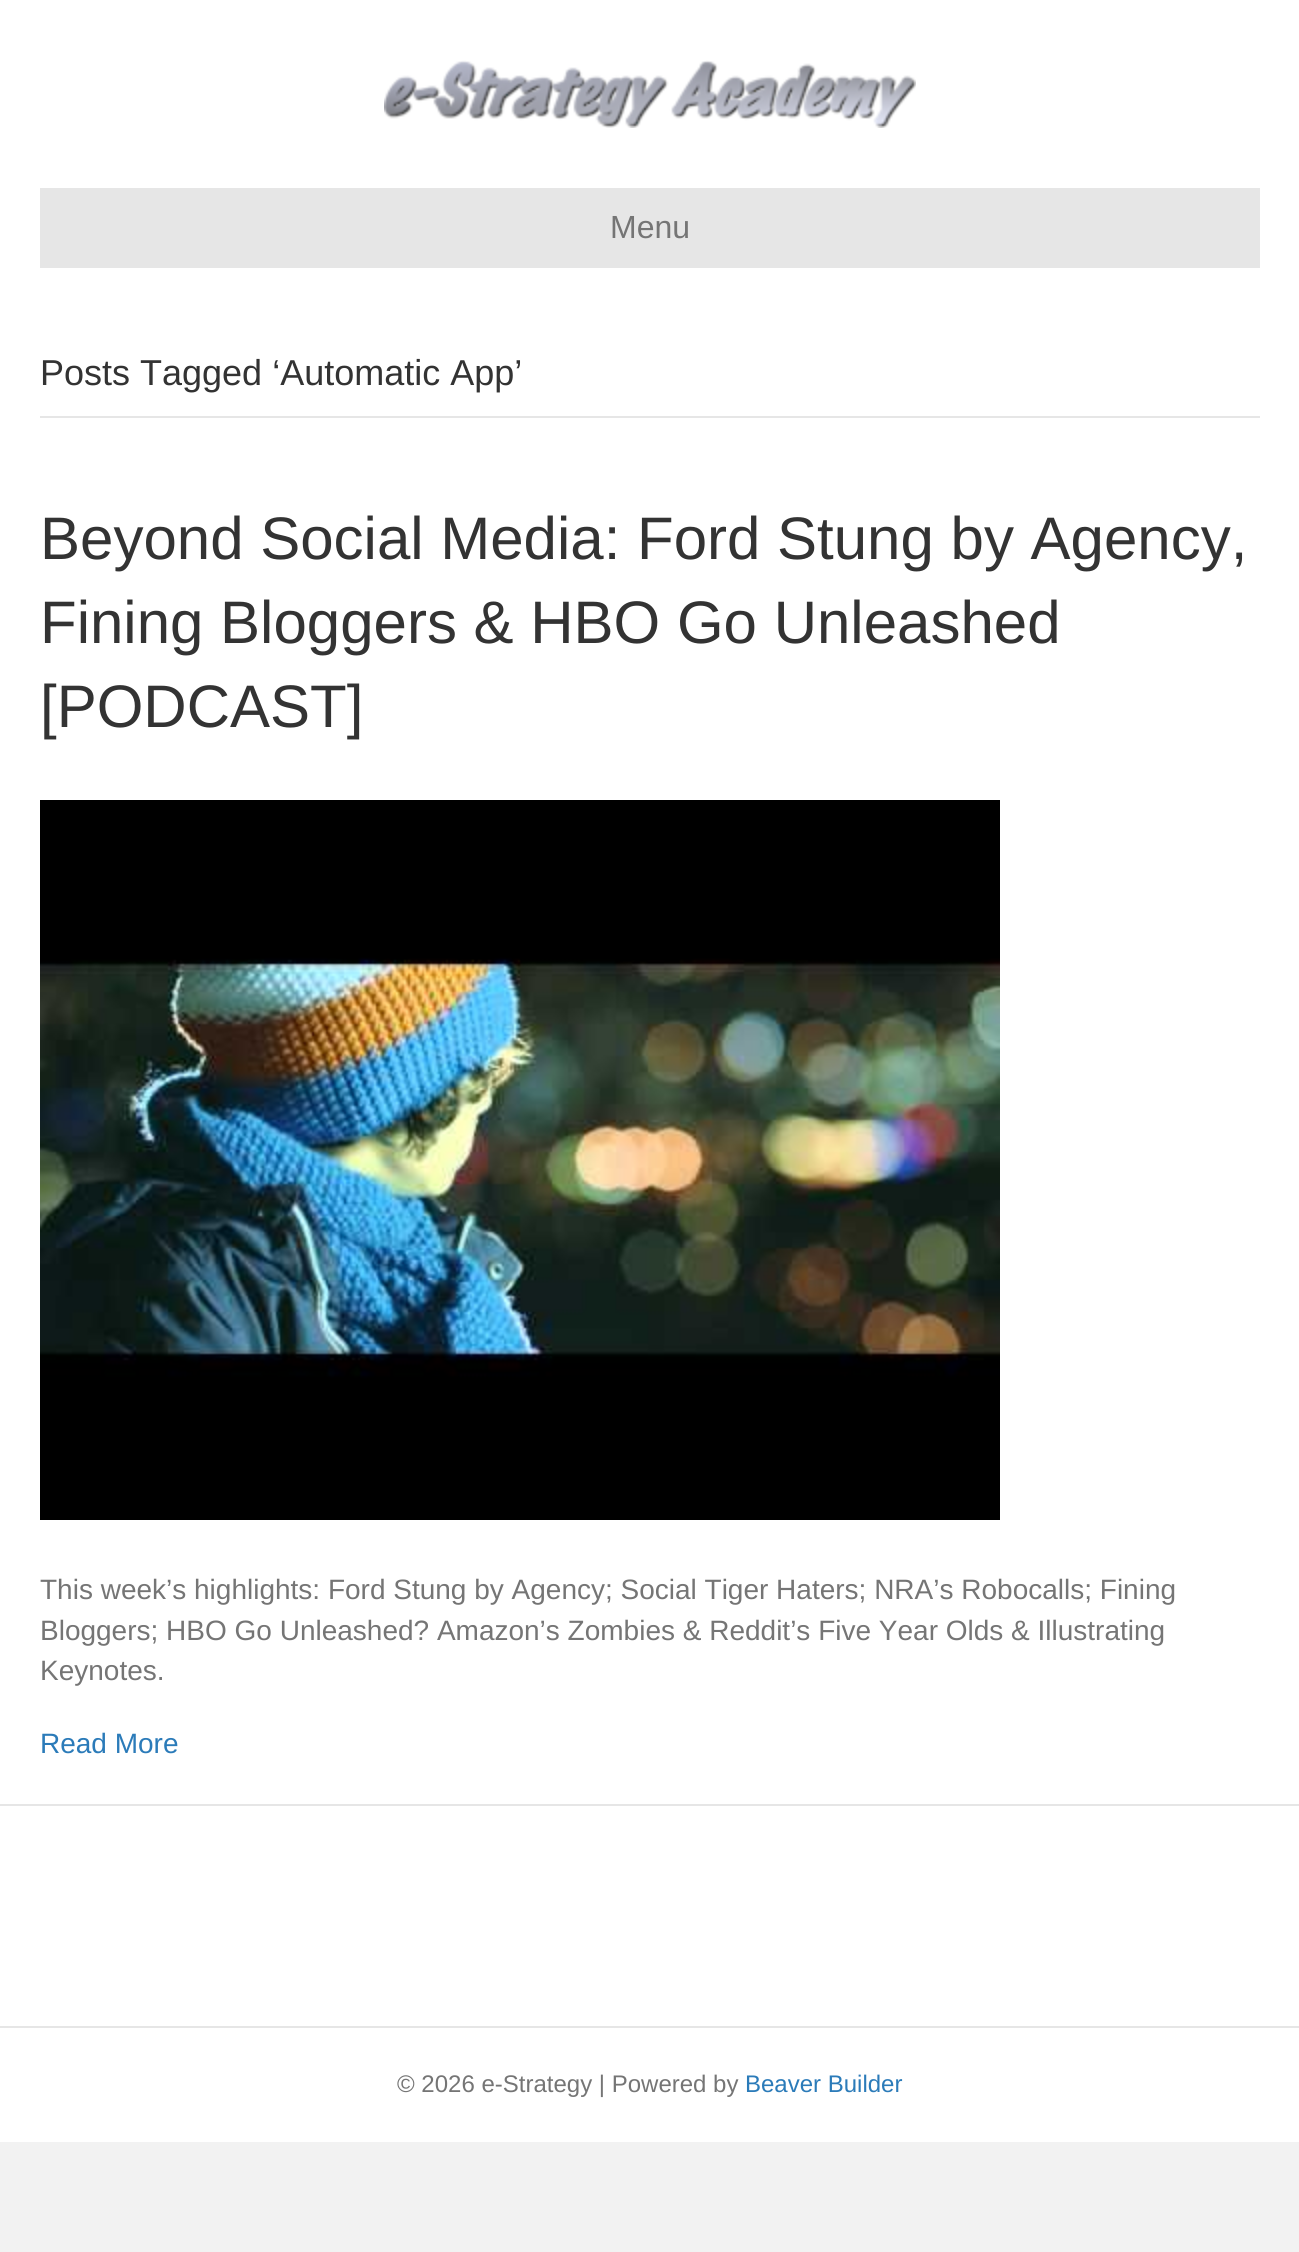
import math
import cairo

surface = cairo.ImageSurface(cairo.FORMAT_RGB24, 1299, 2252)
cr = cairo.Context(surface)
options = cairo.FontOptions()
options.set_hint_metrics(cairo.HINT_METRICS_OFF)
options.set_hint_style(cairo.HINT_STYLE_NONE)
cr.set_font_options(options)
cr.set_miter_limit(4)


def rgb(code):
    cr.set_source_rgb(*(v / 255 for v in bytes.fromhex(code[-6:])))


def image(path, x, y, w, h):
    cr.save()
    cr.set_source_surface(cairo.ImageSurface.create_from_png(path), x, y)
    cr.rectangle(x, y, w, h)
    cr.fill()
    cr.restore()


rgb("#f2f2f2")
cr.paint()
rgb("#ffffff")
cr.rectangle(0, 0, 1299, 1804)
cr.fill()
image("img/1.png", 384, 60, 532, 68)
rgb("#e6e6e6")
cr.rectangle(40, 188, 1220, 80)
cr.fill()
cr.rectangle(40, 416, 1220, 2)
cr.fill()
image("img/2.png", 40, 800, 960, 720)
for x, y, w, h, color in [
    (0, 1806, 1299, 220, "#ffffff"),
    (0, 1804, 1299, 2, "#e6e6e6"),
    (0, 2028, 1299, 114, "#ffffff"),
    (0, 2026, 1299, 2, "#e6e6e6"),
]:
    rgb(color)
    cr.rectangle(x, y, w, h)
    cr.fill()
cr.select_font_face("Liberation Sans")
cr.set_font_size(32)
rgb("#757575")
cr.move_to(610, 238)
cr.show_text("Menu")
cr.set_font_size(36)
rgb("#333333")
cr.move_to(40, 385)
cr.show_text("Posts Tagged ‘Automatic App’")
cr.set_font_size(60)
for x, y, s in [
    (40, 559, "Beyond Social Media: Ford Stung by Agency,"),
    (40, 643, "Fining Bloggers & HBO Go Unleashed"),
    (40, 727, "[PODCAST]"),
]:
    cr.move_to(x, y)
    cr.show_text(s)
cr.set_font_size(28)
rgb("#757575")
for x, y, s in [
    (40, 1599, "This week’s highlights: Ford Stung by Agency; Social Tiger Haters; NRA’s Robocalls; Fining"),
    (40, 1640, "Bloggers; HBO Go Unleashed? Amazon’s Zombies & Reddit’s Five Year Olds & Illustrating"),
    (40, 1680, "Keynotes."),
]:
    cr.move_to(x, y)
    cr.show_text(s)
rgb("#2b7bb9")
cr.move_to(40, 1753)
cr.show_text("Read More")
cr.set_font_size(24)
rgb("#757575")
cr.move_to(397, 2092)
cr.show_text("© 2026 e-Strategy | Powered by")
rgb("#2b7bb9")
cr.move_to(745, 2092)
cr.show_text("Beaver Builder")
surface.write_to_png("page.png")
